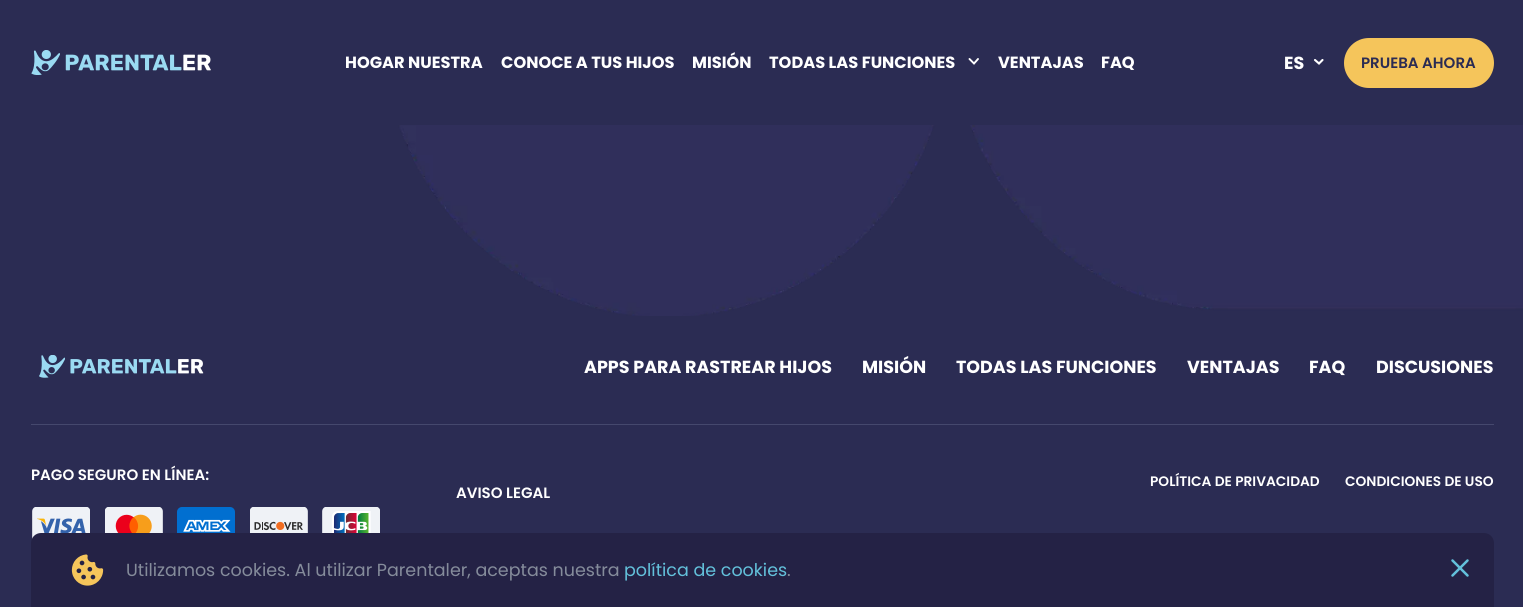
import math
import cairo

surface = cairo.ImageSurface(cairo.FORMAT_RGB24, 1523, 607)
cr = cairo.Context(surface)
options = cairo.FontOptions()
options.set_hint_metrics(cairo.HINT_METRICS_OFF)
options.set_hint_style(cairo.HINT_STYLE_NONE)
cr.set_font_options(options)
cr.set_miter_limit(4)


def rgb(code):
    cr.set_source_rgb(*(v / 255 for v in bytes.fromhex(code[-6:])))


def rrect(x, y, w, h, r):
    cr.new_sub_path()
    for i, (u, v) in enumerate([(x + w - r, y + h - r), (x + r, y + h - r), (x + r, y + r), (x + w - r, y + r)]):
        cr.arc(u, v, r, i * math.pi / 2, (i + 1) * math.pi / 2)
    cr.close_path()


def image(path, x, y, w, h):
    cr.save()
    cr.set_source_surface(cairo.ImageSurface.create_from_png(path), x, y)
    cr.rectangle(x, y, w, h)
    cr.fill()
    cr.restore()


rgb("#2b2c53")
cr.paint()
image("img/1.png", 31, 50, 180, 25)
cr.new_path()
cr.move_to(969.5, 59)
cr.line_to(974, 63.5)
cr.line_to(978, 59)
rgb("#ffffff")
cr.set_line_width(1.9)
cr.set_line_cap(cairo.LINE_CAP_ROUND)
cr.stroke()
cr.new_path()
cr.move_to(1315, 60)
cr.line_to(1319, 63.5)
cr.line_to(1322.5, 60)
cr.set_line_width(2.1)
cr.stroke()
rgb("#f5c55b")
rrect(1344, 38, 150, 50, 25)
cr.fill()
image("img/2.png", 398, 125, 1125, 191)
image("img/3.png", 39, 355, 165, 23)
rgb("#45486d")
cr.rectangle(31, 424, 1463, 1)
cr.fill()
image("img/4.png", 32, 507, 58, 32)
image("img/5.png", 105, 507, 58, 26)
image("img/6.png", 177, 507, 58, 26)
image("img/7.png", 250, 507, 58, 26)
image("img/8.png", 322, 507, 58, 26)
rgb("#242245")
cr.new_path()
cr.move_to(41, 533)
cr.line_to(1484, 533)
cr.curve_to(1489.5, 533, 1494, 537.5, 1494, 543)
cr.line_to(1494, 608)
cr.line_to(31, 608)
cr.line_to(31, 543)
cr.curve_to(31, 537.5, 35.5, 533, 41, 533)
cr.close_path()
cr.fill()
image("img/9.png", 71, 554, 33, 32)
cr.new_path()
cr.move_to(1467.5, 560.5)
cr.line_to(1452.5, 575.5)
cr.move_to(1452.5, 560.5)
cr.line_to(1467.5, 575.5)
rgb("#63c1db")
cr.set_line_width(2.5)
cr.set_line_join(cairo.LINE_JOIN_ROUND)
cr.stroke()
cr.select_font_face("Poppins", cairo.FONT_SLANT_NORMAL, cairo.FONT_WEIGHT_BOLD)
cr.set_font_size(16.25)
rgb("#ffffff")
for x, y, s in [
    (345, 68, "HOGAR NUESTRA"),
    (501, 68, "CONOCE A TUS HIJOS"),
    (692, 68, "MISIÓN"),
    (769, 68, "TODAS LAS FUNCIONES"),
    (998, 68, "VENTAJAS"),
    (1101, 68, "FAQ"),
]:
    cr.move_to(x, y)
    cr.show_text(s)
cr.set_font_size(17.5)
cr.move_to(1284, 69)
cr.show_text("ES")
cr.select_font_face("Poppins SemiBold")
cr.set_font_size(15)
rgb("#2b2c53")
cr.move_to(1361, 68)
cr.show_text("PRUEBA AHORA")
cr.select_font_face("Poppins", cairo.FONT_SLANT_NORMAL, cairo.FONT_WEIGHT_BOLD)
cr.set_font_size(17.5)
rgb("#ffffff")
for x, y, s in [
    (584, 373, "APPS PARA RASTREAR HIJOS"),
    (862, 373, "MISIÓN"),
    (956, 373, "TODAS LAS FUNCIONES"),
    (1187, 373, "VENTAJAS"),
    (1309, 373, "FAQ"),
    (1376, 373, "DISCUSIONES"),
]:
    cr.move_to(x, y)
    cr.show_text(s)
cr.select_font_face("Poppins SemiBold")
cr.set_font_size(15)
cr.move_to(31, 480)
cr.show_text("PAGO SEGURO EN LÍNEA:")
cr.set_font_size(13.75)
cr.move_to(1150, 486)
cr.show_text("POLÍTICA DE PRIVACIDAD")
cr.move_to(1345, 486)
cr.show_text("CONDICIONES DE USO")
cr.set_font_size(15)
cr.move_to(456, 498)
cr.show_text("AVISO LEGAL")
cr.select_font_face("Poppins")
cr.set_font_size(17.5)
rgb("#858c9b")
cr.move_to(126, 576)
cr.show_text("Utilizamos cookies. Al utilizar Parentaler, aceptas nuestra")
rgb("#63c1db")
cr.move_to(624, 576)
cr.show_text("política de cookies")
rgb("#858c9b")
cr.move_to(787, 576)
cr.show_text(".")
surface.write_to_png("page.png")
